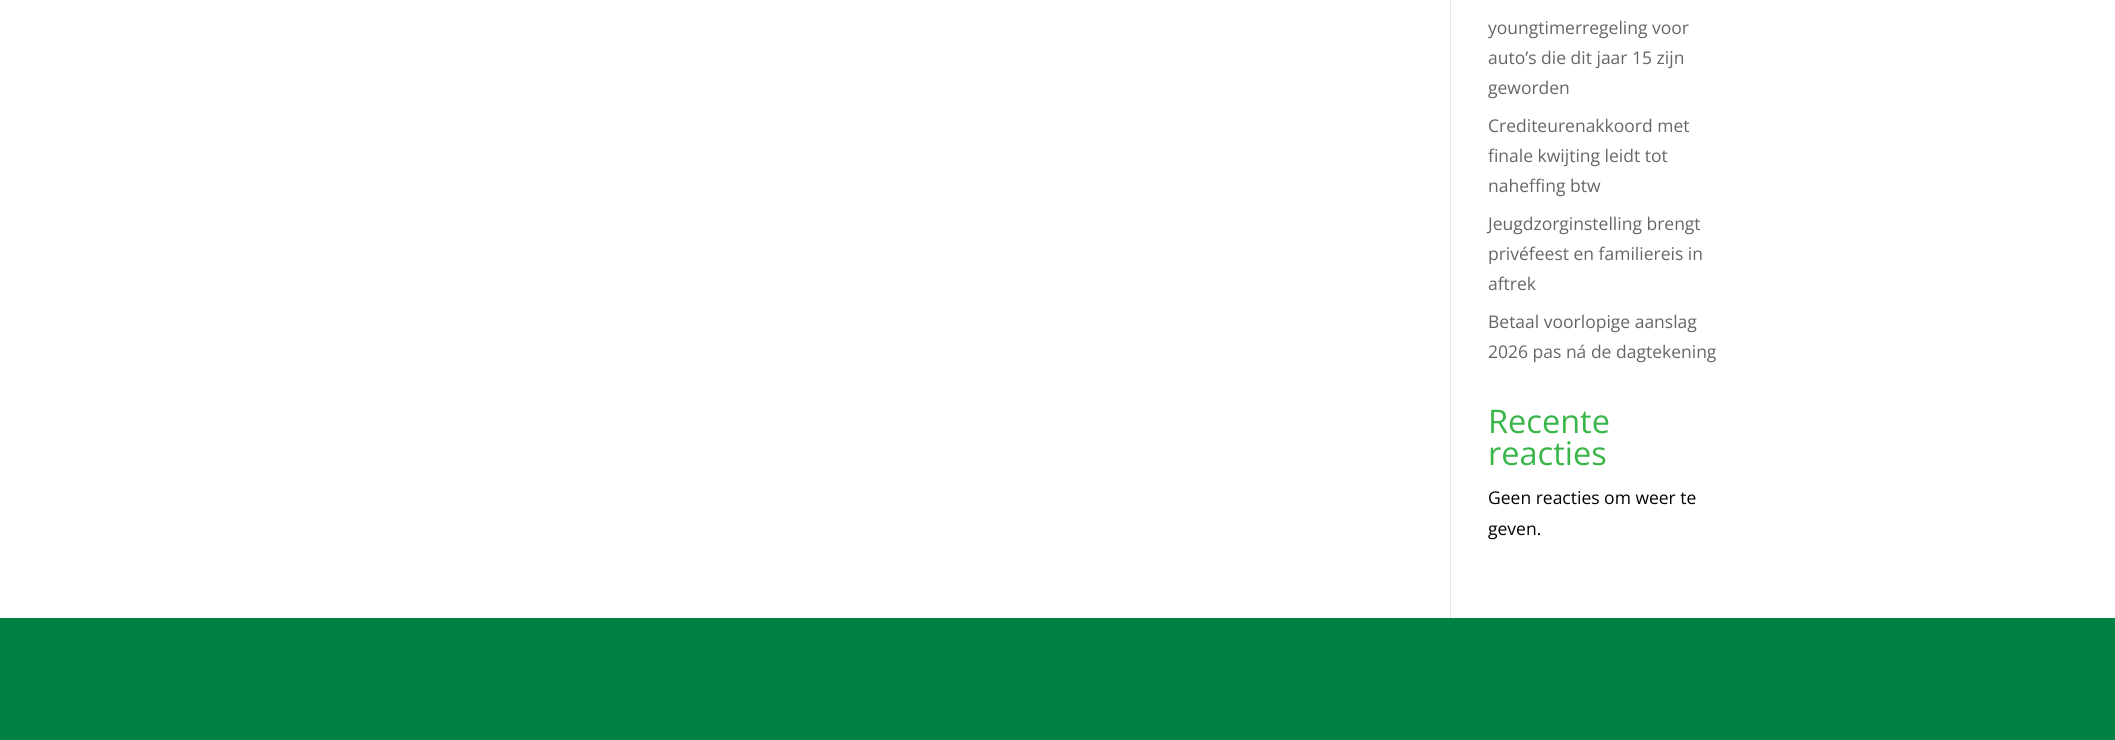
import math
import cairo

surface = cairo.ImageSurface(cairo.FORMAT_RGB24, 2115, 740)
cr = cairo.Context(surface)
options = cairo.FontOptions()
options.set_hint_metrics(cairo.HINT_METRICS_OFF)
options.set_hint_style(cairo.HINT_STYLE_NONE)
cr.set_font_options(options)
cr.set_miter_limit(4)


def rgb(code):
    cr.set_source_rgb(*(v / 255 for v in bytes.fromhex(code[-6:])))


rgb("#ffffff")
cr.paint()
rgb("#e2e2e2")
cr.rectangle(1450, 0, 1, 618)
cr.fill()
rgb("#008043")
cr.rectangle(0, 618, 2115, 122)
cr.fill()
cr.select_font_face("Open Sans")
cr.set_font_size(17.5)
rgb("#666666")
for x, y, s in [
    (1488, 34, "youngtimerregeling voor"),
    (1488, 64, "auto’s die dit jaar 15 zijn"),
    (1488, 94, "geworden"),
    (1488, 132, "Crediteurenakkoord met"),
    (1488, 162, "finale kwijting leidt tot"),
    (1488, 192, "naheffing btw"),
    (1488, 230, "Jeugdzorginstelling brengt"),
    (1488, 260, "privéfeest en familiereis in"),
    (1488, 290, "aftrek"),
    (1488, 328, "Betaal voorlopige aanslag"),
    (1488, 358, "2026 pas ná de dagtekening"),
]:
    cr.move_to(x, y)
    cr.show_text(s)
cr.set_font_size(32.5)
rgb("#39b54a")
cr.move_to(1488, 433)
cr.show_text("Recente")
cr.move_to(1488, 465)
cr.show_text("reacties")
cr.set_font_size(17.5)
rgb("#000000")
cr.move_to(1488, 504)
cr.show_text("Geen reacties om weer te")
cr.move_to(1488, 535)
cr.show_text("geven.")
surface.write_to_png("page.png")
